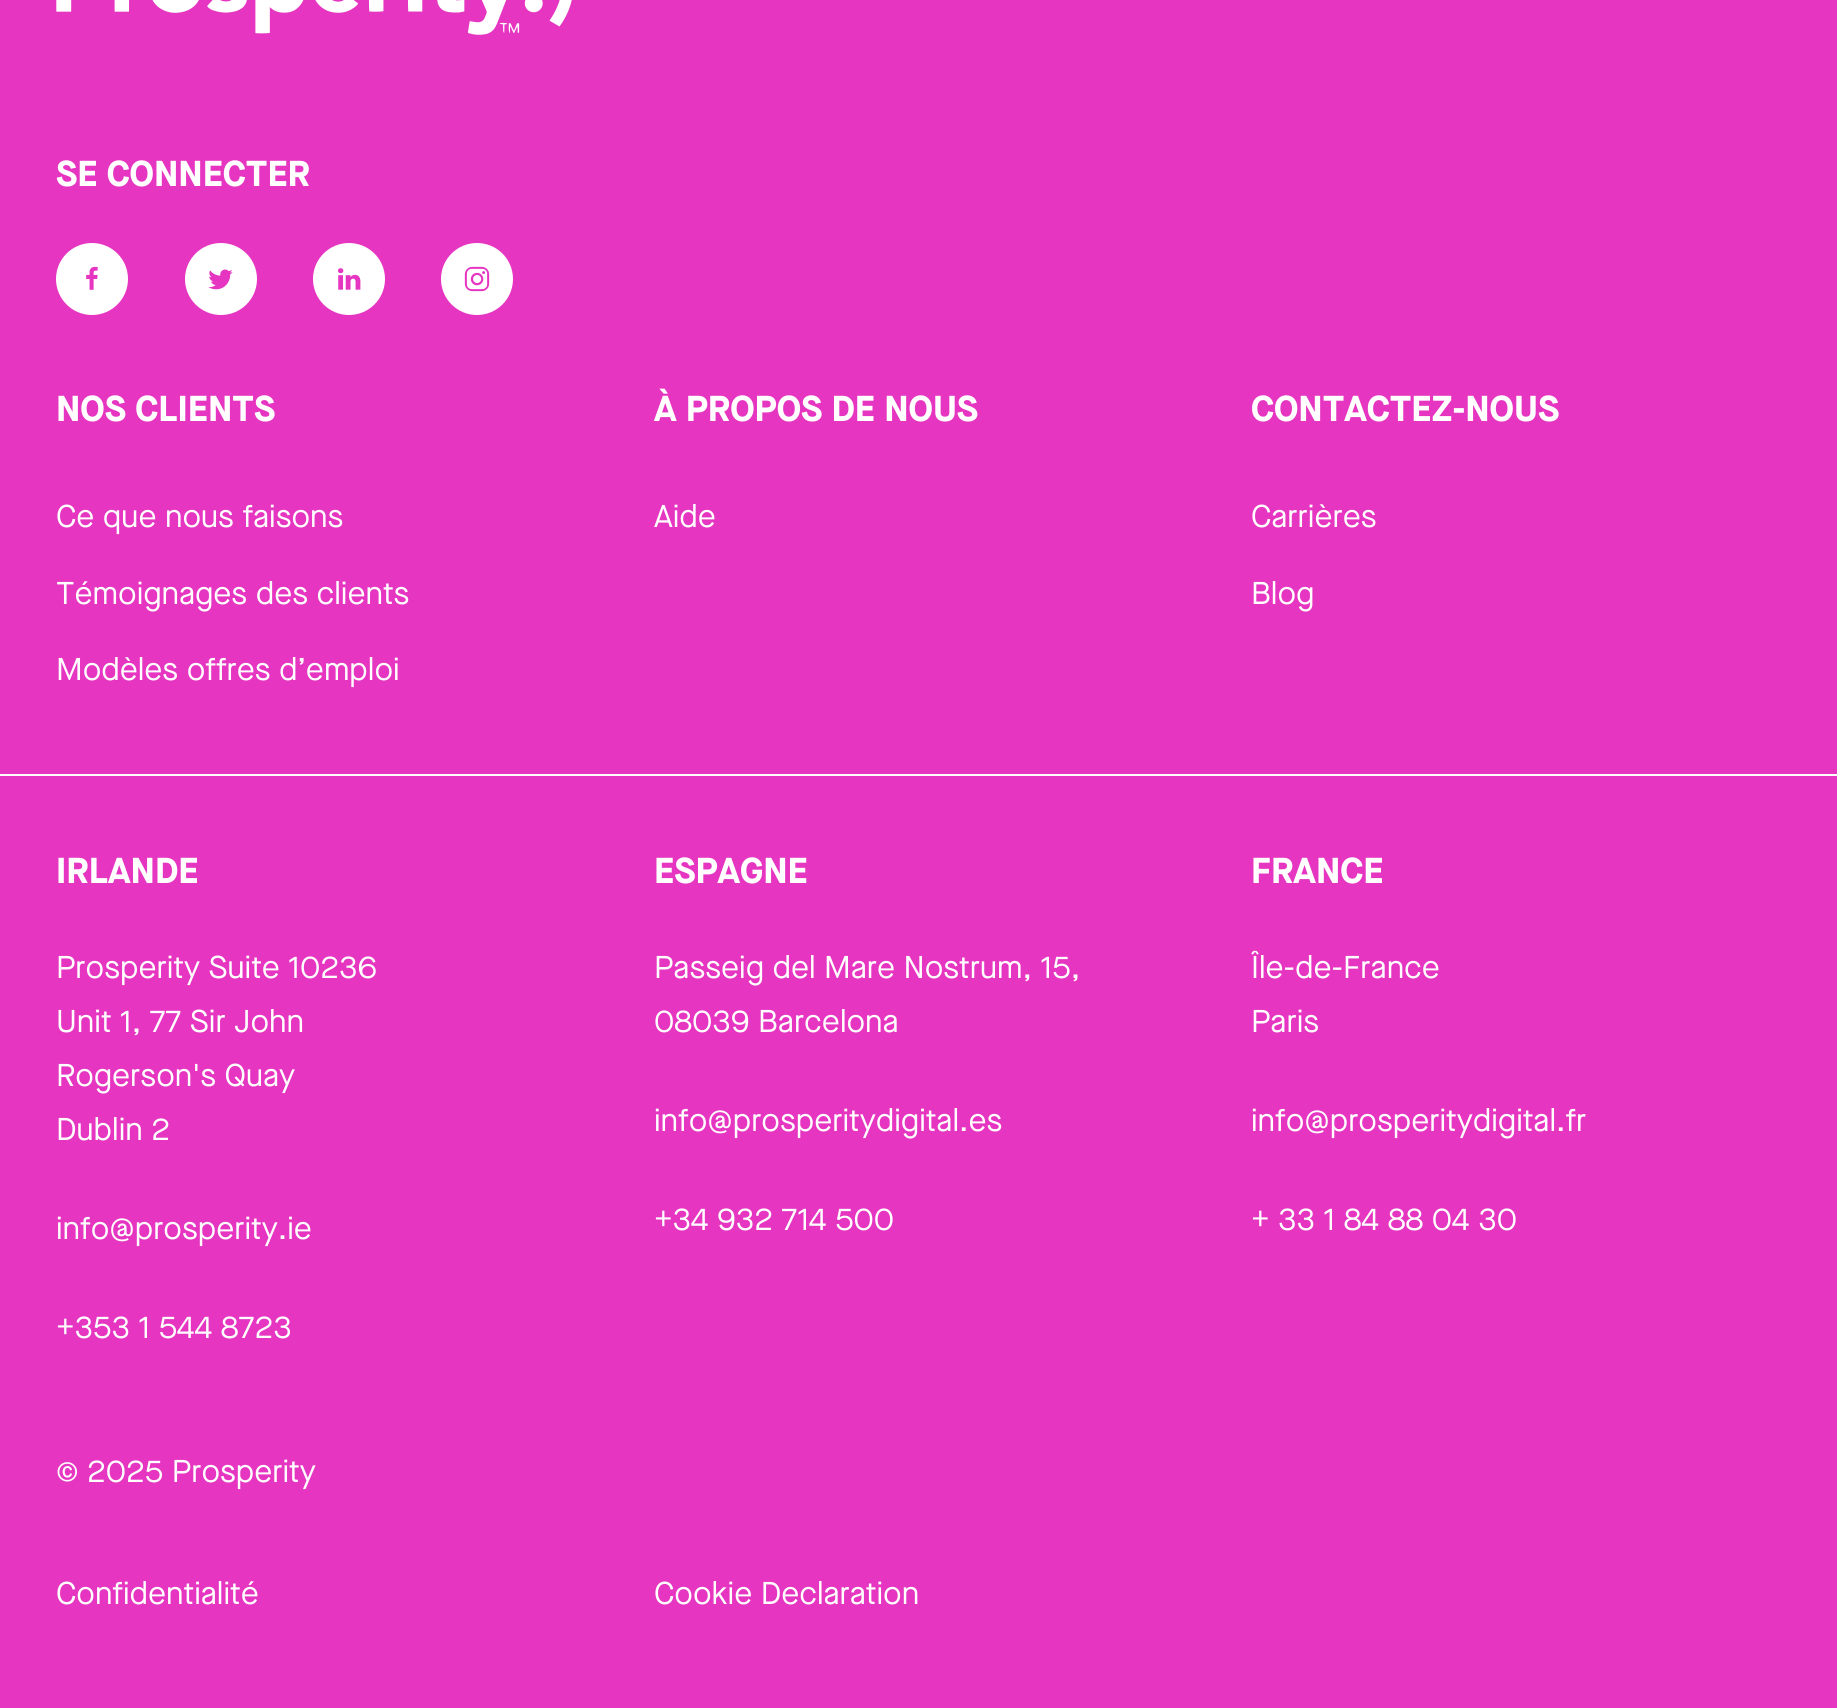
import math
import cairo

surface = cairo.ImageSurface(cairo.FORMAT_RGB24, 1837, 1708)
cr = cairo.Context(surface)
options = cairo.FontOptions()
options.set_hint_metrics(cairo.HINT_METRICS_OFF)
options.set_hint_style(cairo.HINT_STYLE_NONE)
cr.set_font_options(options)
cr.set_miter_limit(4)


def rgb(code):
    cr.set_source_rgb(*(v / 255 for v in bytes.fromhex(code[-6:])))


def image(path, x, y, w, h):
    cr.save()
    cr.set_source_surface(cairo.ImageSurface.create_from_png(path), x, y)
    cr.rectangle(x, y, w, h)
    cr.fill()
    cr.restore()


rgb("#e635c1")
cr.paint()
image("img/1.png", 56, 0, 516, 35)
rgb("#ffffff")
cr.arc(92, 279, 36, 0, 2 * math.pi)
cr.fill()
image("img/2.png", 86, 266, 12, 24)
cr.arc(221, 279, 36, 0, 2 * math.pi)
cr.fill()
image("img/3.png", 208, 269, 25, 21)
cr.arc(349, 279, 36, 0, 2 * math.pi)
cr.fill()
image("img/4.png", 338, 268, 23, 22)
cr.arc(477, 279, 36, 0, 2 * math.pi)
cr.fill()
image("img/5.png", 464, 266, 26, 26)
cr.rectangle(0, 774, 1837, 2)
cr.fill()
cr.select_font_face("Maison Neue", cairo.FONT_SLANT_NORMAL, cairo.FONT_WEIGHT_BOLD)
cr.set_font_size(36)
cr.move_to(56, 186)
cr.show_text("SE CONNECTER")
cr.move_to(56, 421)
cr.show_text("NOS CLIENTS")
cr.select_font_face("Maison Neue")
cr.set_font_size(31.5)
for x, y, s in [
    (56, 527, "Ce que nous faisons"),
    (56, 604, "Témoignages des clients"),
    (56, 680, "Modèles offres d’emploi"),
]:
    cr.move_to(x, y)
    cr.show_text(s)
cr.select_font_face("Maison Neue", cairo.FONT_SLANT_NORMAL, cairo.FONT_WEIGHT_BOLD)
cr.set_font_size(36)
cr.move_to(654, 421)
cr.show_text("À PROPOS DE NOUS")
cr.select_font_face("Maison Neue")
cr.set_font_size(31.5)
cr.move_to(654, 527)
cr.show_text("Aide")
cr.select_font_face("Maison Neue", cairo.FONT_SLANT_NORMAL, cairo.FONT_WEIGHT_BOLD)
cr.set_font_size(36)
cr.move_to(1251, 421)
cr.show_text("CONTACTEZ-NOUS")
cr.select_font_face("Maison Neue")
cr.set_font_size(31.5)
cr.move_to(1251, 527)
cr.show_text("Carrières")
cr.move_to(1251, 604)
cr.show_text("Blog")
cr.select_font_face("Maison Neue", cairo.FONT_SLANT_NORMAL, cairo.FONT_WEIGHT_BOLD)
cr.set_font_size(36)
cr.move_to(56, 883)
cr.show_text("IRLANDE")
cr.select_font_face("Maison Neue")
cr.set_font_size(31.5)
for x, y, s in [
    (56, 978, "Prosperity Suite 10236"),
    (56, 1032, "Unit 1, 77 Sir John"),
    (56, 1086, "Rogerson's Quay"),
    (56, 1140, "Dublin 2"),
    (56, 1239, "info@prosperity.ie"),
    (56, 1338, "+353 1 544 8723"),
]:
    cr.move_to(x, y)
    cr.show_text(s)
cr.select_font_face("Maison Neue", cairo.FONT_SLANT_NORMAL, cairo.FONT_WEIGHT_BOLD)
cr.set_font_size(36)
cr.move_to(654, 883)
cr.show_text("ESPAGNE")
cr.select_font_face("Maison Neue")
cr.set_font_size(31.5)
for x, y, s in [
    (654, 978, "Passeig del Mare Nostrum, 15,"),
    (654, 1032, "08039 Barcelona"),
    (654, 1131, "info@prosperitydigital.es"),
    (654, 1230, "+34 932 714 500"),
]:
    cr.move_to(x, y)
    cr.show_text(s)
cr.select_font_face("Maison Neue", cairo.FONT_SLANT_NORMAL, cairo.FONT_WEIGHT_BOLD)
cr.set_font_size(36)
cr.move_to(1251, 883)
cr.show_text("FRANCE")
cr.select_font_face("Maison Neue")
cr.set_font_size(31.5)
for x, y, s in [
    (1251, 978, "Île-de-France"),
    (1251, 1032, "Paris"),
    (1251, 1131, "info@prosperitydigital.fr"),
    (1251, 1230, "+ 33 1 84 88 04 30"),
    (56, 1482, "© 2025 Prosperity"),
    (56, 1604, "Confidentialité"),
    (654, 1604, "Cookie Declaration"),
]:
    cr.move_to(x, y)
    cr.show_text(s)
surface.write_to_png("page.png")
